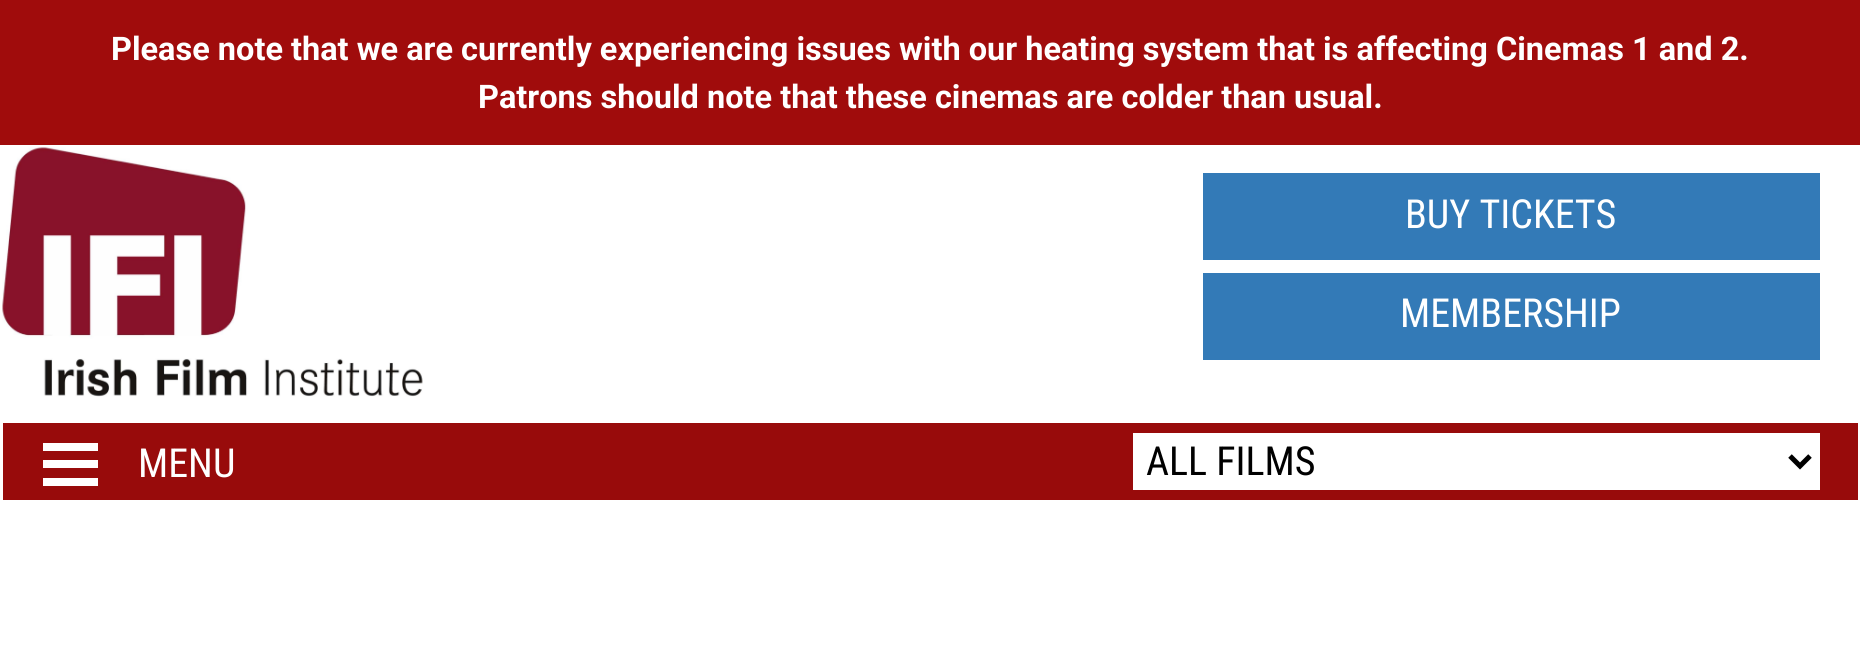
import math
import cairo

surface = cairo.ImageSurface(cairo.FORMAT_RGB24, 1860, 647)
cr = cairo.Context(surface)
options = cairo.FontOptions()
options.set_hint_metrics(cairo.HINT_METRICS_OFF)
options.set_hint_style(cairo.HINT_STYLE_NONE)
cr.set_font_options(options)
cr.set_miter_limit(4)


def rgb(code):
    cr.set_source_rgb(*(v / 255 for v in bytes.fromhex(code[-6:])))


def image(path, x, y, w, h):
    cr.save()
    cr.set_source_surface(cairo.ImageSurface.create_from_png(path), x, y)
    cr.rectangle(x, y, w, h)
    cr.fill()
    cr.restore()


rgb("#ffffff")
cr.paint()
rgb("#a00c0c")
cr.rectangle(0, 0, 1860, 145)
cr.fill()
image("img/1.png", 2, 147, 421, 250)
for x, y, w, h, color in [
    (1203, 173, 617, 87, "#337ab7"),
    (1203, 273, 617, 87, "#337ab7"),
    (3, 423, 1855, 77, "#980b0b"),
    (43, 443, 55, 8, "#ffffff"),
    (43, 460, 55, 8, "#ffffff"),
    (43, 478, 55, 8, "#ffffff"),
    (1133, 433, 687, 57, "#ffffff"),
]:
    rgb(color)
    cr.rectangle(x, y, w, h)
    cr.fill()
cr.new_path()
cr.move_to(1790, 456)
cr.line_to(1800, 466)
cr.line_to(1810, 456)
rgb("#000000")
cr.set_line_width(5)
cr.stroke()
cr.select_font_face("Roboto", cairo.FONT_SLANT_NORMAL, cairo.FONT_WEIGHT_BOLD)
cr.set_font_size(32.5)
rgb("#ffffff")
cr.move_to(111, 60)
cr.show_text("Please note that we are currently experiencing issues with our heating system that is affecting Cinemas 1 and 2.")
cr.move_to(478, 108)
cr.show_text("Patrons should note that these cinemas are colder than usual.")
cr.select_font_face("Roboto Condensed")
cr.set_font_size(40)
for x, y, s in [
    (1405, 228, "BUY TICKETS"),
    (1400, 327, "MEMBERSHIP"),
    (138, 477, "MENU"),
]:
    cr.move_to(x, y)
    cr.show_text(s)
rgb("#000000")
cr.move_to(1146, 475)
cr.show_text("ALL FILMS")
surface.write_to_png("page.png")
